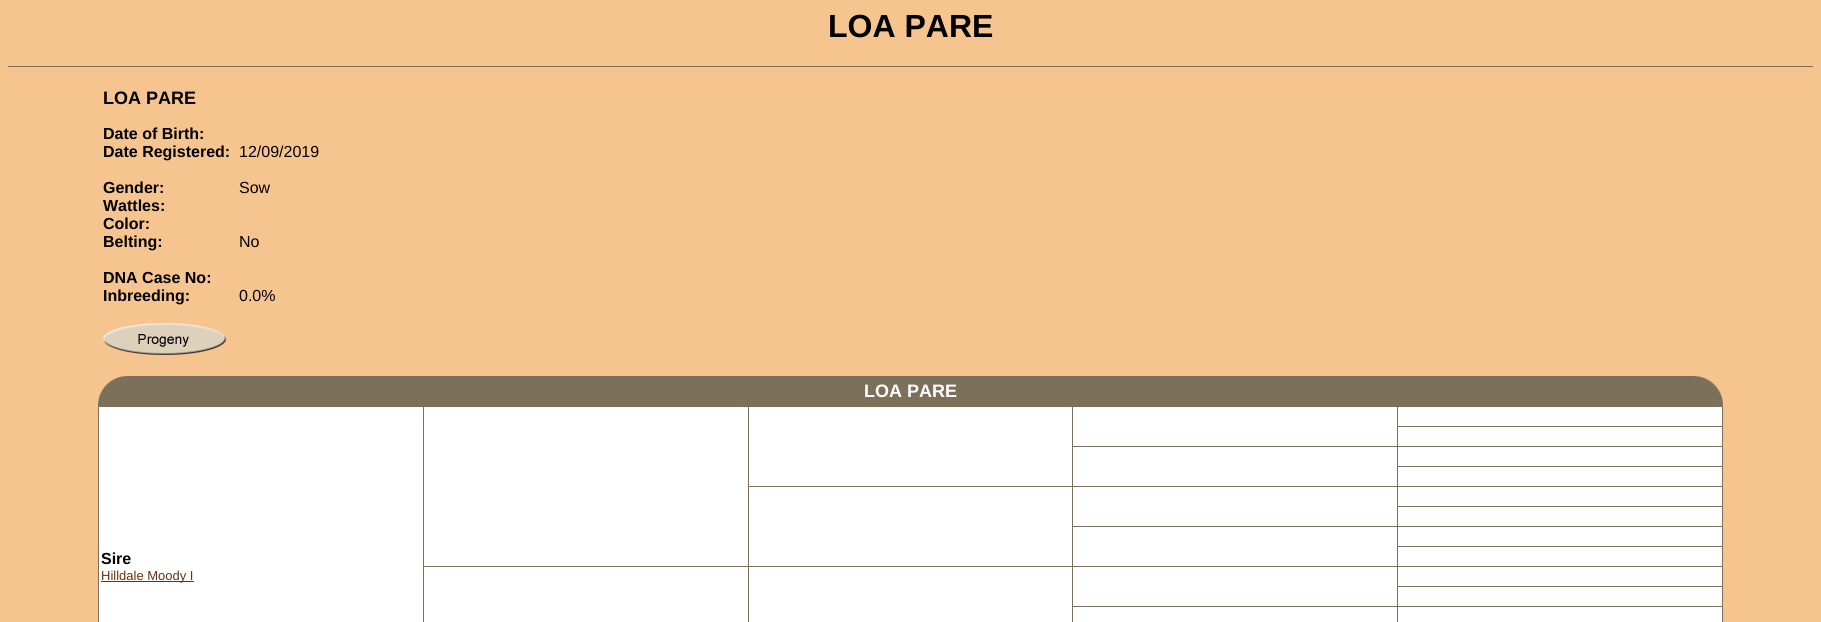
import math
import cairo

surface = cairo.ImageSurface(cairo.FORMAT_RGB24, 1821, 622)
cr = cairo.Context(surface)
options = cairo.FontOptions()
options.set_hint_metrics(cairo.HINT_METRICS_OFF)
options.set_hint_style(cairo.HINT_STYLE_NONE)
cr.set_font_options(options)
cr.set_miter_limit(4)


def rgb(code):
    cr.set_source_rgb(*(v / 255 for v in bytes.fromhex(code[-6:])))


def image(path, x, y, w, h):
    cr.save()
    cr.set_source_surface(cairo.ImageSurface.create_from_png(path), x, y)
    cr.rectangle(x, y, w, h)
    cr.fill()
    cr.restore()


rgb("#f6c58f")
cr.paint()
rgb("#7c705a")
cr.rectangle(8, 66, 1805, 1)
cr.fill()
image("img/1.png", 103, 323, 123, 32)
image("img/2.png", 98, 376, 30, 30)
cr.rectangle(128, 376, 1565, 30)
cr.fill()
image("img/3.png", 1693, 376, 30, 30)
for x, y, w, h, color in [
    (98, 406, 1625, 216, "#7c705a"),
    (1398, 427, 324, 19, "#ffffff"),
    (1073, 447, 324, 39, "#ffffff"),
    (1398, 447, 324, 19, "#ffffff"),
    (1398, 467, 324, 19, "#ffffff"),
    (749, 487, 323, 79, "#ffffff"),
    (1073, 487, 324, 39, "#ffffff"),
    (1398, 487, 324, 19, "#ffffff"),
    (1398, 507, 324, 19, "#ffffff"),
    (1073, 527, 324, 39, "#ffffff"),
    (1398, 527, 324, 19, "#ffffff"),
    (424, 407, 324, 159, "#ffffff"),
    (749, 407, 323, 79, "#ffffff"),
    (1073, 407, 324, 39, "#ffffff"),
    (1398, 407, 324, 19, "#ffffff"),
    (99, 407, 324, 215, "#ffffff"),
    (101, 581, 93, 1, "#663211"),
    (1398, 547, 324, 19, "#ffffff"),
    (424, 567, 324, 55, "#ffffff"),
    (749, 567, 323, 55, "#ffffff"),
    (1073, 567, 324, 39, "#ffffff"),
    (1398, 567, 324, 19, "#ffffff"),
    (1398, 587, 324, 19, "#ffffff"),
    (1073, 607, 324, 15, "#ffffff"),
    (1398, 607, 324, 15, "#ffffff"),
]:
    rgb(color)
    cr.rectangle(x, y, w, h)
    cr.fill()
cr.select_font_face("Liberation Sans", cairo.FONT_SLANT_NORMAL, cairo.FONT_WEIGHT_BOLD)
cr.set_font_size(32)
rgb("#000000")
cr.move_to(828, 37)
cr.show_text("LOA PARE")
cr.set_font_size(18)
cr.move_to(103, 104)
cr.show_text("LOA PARE")
cr.set_font_size(16)
cr.move_to(103, 139)
cr.show_text("Date of Birth:")
cr.move_to(103, 157)
cr.show_text("Date Registered:")
cr.select_font_face("Liberation Sans")
cr.move_to(239, 157)
cr.show_text("12/09/2019")
cr.select_font_face("Liberation Sans", cairo.FONT_SLANT_NORMAL, cairo.FONT_WEIGHT_BOLD)
cr.move_to(103, 193)
cr.show_text("Gender:")
cr.select_font_face("Liberation Sans")
cr.move_to(239, 193)
cr.show_text("Sow")
cr.select_font_face("Liberation Sans", cairo.FONT_SLANT_NORMAL, cairo.FONT_WEIGHT_BOLD)
for x, y, s in [
    (103, 211, "Wattles:"),
    (103, 229, "Color:"),
    (103, 247, "Belting:"),
]:
    cr.move_to(x, y)
    cr.show_text(s)
cr.select_font_face("Liberation Sans")
cr.move_to(239, 247)
cr.show_text("No")
cr.select_font_face("Liberation Sans", cairo.FONT_SLANT_NORMAL, cairo.FONT_WEIGHT_BOLD)
cr.move_to(103, 283)
cr.show_text("DNA Case No:")
cr.move_to(103, 301)
cr.show_text("Inbreeding:")
cr.select_font_face("Liberation Sans")
cr.move_to(239, 301)
cr.show_text("0.0%")
cr.select_font_face("Liberation Sans", cairo.FONT_SLANT_NORMAL, cairo.FONT_WEIGHT_BOLD)
cr.set_font_size(18)
rgb("#ffffff")
cr.move_to(864, 397)
cr.show_text("LOA PARE")
cr.set_font_size(16)
rgb("#000000")
cr.move_to(101, 564)
cr.show_text("Sire")
cr.select_font_face("Liberation Sans")
cr.set_font_size(13)
rgb("#663211")
cr.move_to(101, 580)
cr.show_text("Hilldale Moody I")
surface.write_to_png("page.png")
